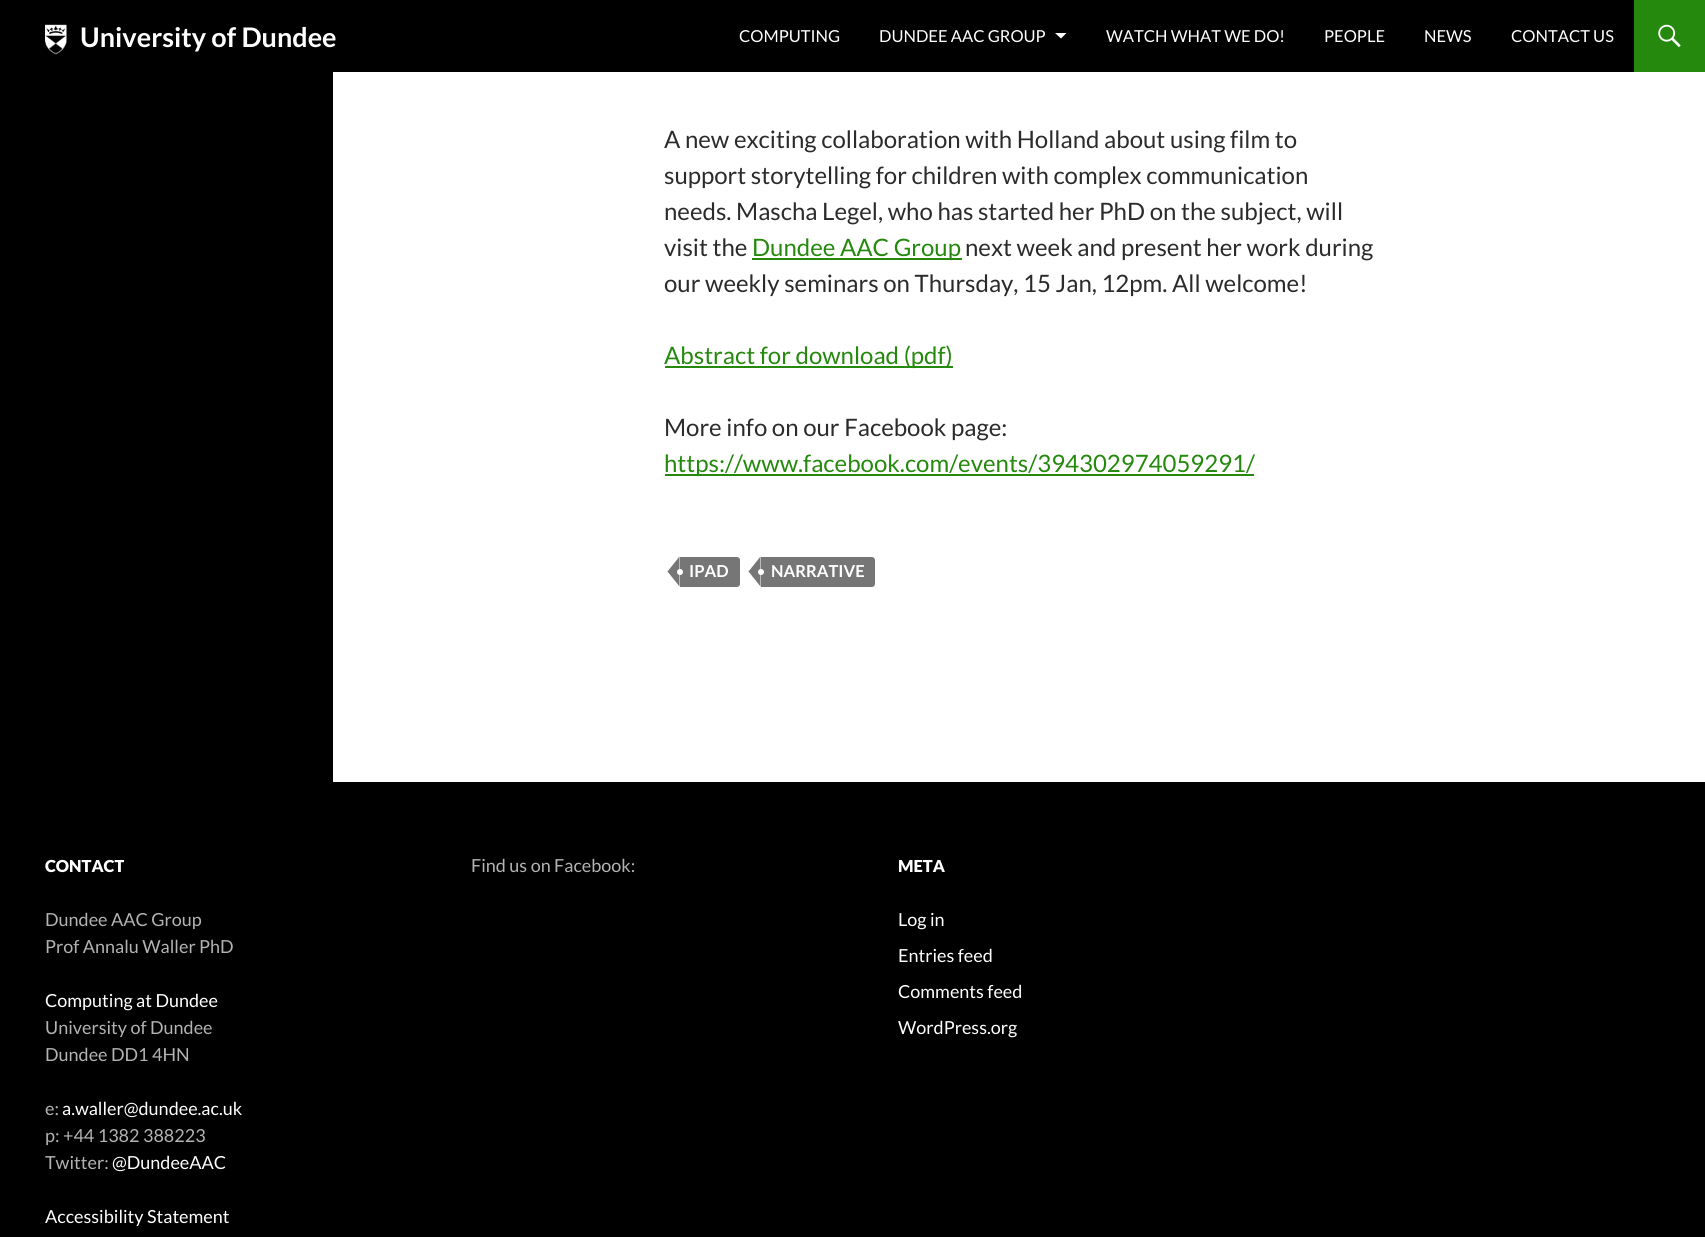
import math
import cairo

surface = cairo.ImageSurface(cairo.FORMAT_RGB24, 1705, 1237)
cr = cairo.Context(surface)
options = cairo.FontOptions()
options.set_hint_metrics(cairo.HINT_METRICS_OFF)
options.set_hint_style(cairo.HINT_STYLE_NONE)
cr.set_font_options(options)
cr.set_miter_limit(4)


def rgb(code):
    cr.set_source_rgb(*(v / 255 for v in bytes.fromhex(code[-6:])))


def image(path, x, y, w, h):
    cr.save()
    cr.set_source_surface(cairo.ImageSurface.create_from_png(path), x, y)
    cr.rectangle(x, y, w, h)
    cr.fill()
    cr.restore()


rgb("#ffffff")
cr.paint()
rgb("#000000")
cr.rectangle(0, 0, 1634, 72)
cr.fill()
image("img/1.png", 45, 24, 22, 31)
rgb("#ffffff")
cr.new_path()
cr.move_to(1055, 33)
cr.line_to(1061, 38.5)
cr.line_to(1066.5, 33)
cr.close_path()
cr.fill()
rgb("#24890d")
cr.rectangle(1634, 0, 71, 72)
cr.fill()
image("img/2.png", 1658, 24, 23, 24)
for x, y, w, h, color in [
    (0, 72, 333, 710, "#000000"),
    (752, 258, 210, 2, "#24890d"),
    (665, 366, 288, 2, "#24890d"),
    (665, 474, 589, 2, "#24890d"),
]:
    rgb(color)
    cr.rectangle(x, y, w, h)
    cr.fill()
rgb("#767676")
cr.new_path()
cr.move_to(680, 557)
cr.line_to(737, 557)
cr.curve_to(738.5, 557, 740, 558.5, 740, 560)
cr.line_to(740, 584)
cr.curve_to(740, 585.5, 738.5, 587, 737, 587)
cr.line_to(680, 587)
cr.close_path()
cr.fill()
cr.new_path()
cr.move_to(679.5, 556.5)
cr.line_to(679.5, 586.5)
cr.line_to(667.5, 571.5)
cr.close_path()
cr.fill()
rgb("#ffffff")
cr.arc(680, 572, 3, 0, 2 * math.pi)
cr.fill()
rgb("#767676")
cr.new_path()
cr.move_to(761, 557)
cr.line_to(872, 557)
cr.curve_to(873.5, 557, 875, 558.5, 875, 560)
cr.line_to(875, 584)
cr.curve_to(875, 585.5, 873.5, 587, 872, 587)
cr.line_to(761, 587)
cr.close_path()
cr.fill()
cr.new_path()
cr.move_to(760.5, 556.5)
cr.line_to(760.5, 586.5)
cr.line_to(748.5, 571.5)
cr.close_path()
cr.fill()
rgb("#ffffff")
cr.arc(761, 572, 3, 0, 2 * math.pi)
cr.fill()
rgb("#000000")
cr.rectangle(0, 782, 1705, 455)
cr.fill()
cr.select_font_face("Lato", cairo.FONT_SLANT_NORMAL, cairo.FONT_WEIGHT_BOLD)
cr.set_font_size(27)
rgb("#ffffff")
cr.move_to(80, 47)
cr.show_text("University of Dundee")
cr.select_font_face("Lato")
cr.set_font_size(16.5)
for x, y, s in [
    (739, 42, "COMPUTING"),
    (879, 42, "DUNDEE AAC GROUP"),
    (1106, 42, "WATCH WHAT WE DO!"),
    (1324, 42, "PEOPLE"),
    (1424, 42, "NEWS"),
    (1511, 42, "CONTACT US"),
]:
    cr.move_to(x, y)
    cr.show_text(s)
cr.set_font_size(24)
rgb("#2b2b2b")
for x, y, s in [
    (664, 148, "A new exciting collaboration with Holland about using film to"),
    (664, 184, "support storytelling for children with complex communication"),
    (664, 220, "needs. Mascha Legel, who has started her PhD on the subject, will"),
    (664, 256, "visit the"),
]:
    cr.move_to(x, y)
    cr.show_text(s)
rgb("#24890d")
cr.move_to(752, 256)
cr.show_text("Dundee AAC Group")
rgb("#2b2b2b")
cr.move_to(965, 256)
cr.show_text("next week and present her work during")
cr.move_to(664, 292)
cr.show_text("our weekly seminars on Thursday, 15 Jan, 12pm. All welcome!")
rgb("#24890d")
cr.move_to(664, 364)
cr.show_text("Abstract for download (pdf)")
rgb("#2b2b2b")
cr.move_to(664, 436)
cr.show_text("More info on our Facebook page:")
rgb("#24890d")
cr.move_to(664, 472)
cr.show_text("https://www.facebook.com/events/394302974059291/")
cr.select_font_face("Lato", cairo.FONT_SLANT_NORMAL, cairo.FONT_WEIGHT_BOLD)
cr.set_font_size(16.5)
rgb("#ffffff")
cr.move_to(689, 577)
cr.show_text("IPAD")
cr.move_to(771, 577)
cr.show_text("NARRATIVE")
cr.select_font_face("Lato Black")
cr.move_to(45, 872)
cr.show_text("CONTACT")
cr.select_font_face("Lato")
cr.set_font_size(18)
rgb("#b3b3b3")
cr.move_to(45, 926)
cr.show_text("Dundee AAC Group")
cr.move_to(45, 953)
cr.show_text("Prof Annalu Waller PhD")
rgb("#ffffff")
cr.move_to(45, 1007)
cr.show_text("Computing at Dundee")
rgb("#b3b3b3")
for x, y, s in [
    (45, 1034, "University of Dundee"),
    (45, 1061, "Dundee DD1 4HN"),
    (45, 1115, "e:"),
]:
    cr.move_to(x, y)
    cr.show_text(s)
rgb("#ffffff")
cr.move_to(62, 1115)
cr.show_text("a.waller@dundee.ac.uk")
rgb("#b3b3b3")
cr.move_to(45, 1142)
cr.show_text("p: +44 1382 388223")
cr.move_to(45, 1169)
cr.show_text("Twitter:")
rgb("#ffffff")
cr.move_to(112, 1169)
cr.show_text("@DundeeAAC")
cr.move_to(45, 1223)
cr.show_text("Accessibility Statement")
rgb("#b3b3b3")
cr.move_to(471, 872)
cr.show_text("Find us on Facebook:")
cr.select_font_face("Lato Black")
cr.set_font_size(16.5)
rgb("#ffffff")
cr.move_to(898, 872)
cr.show_text("META")
cr.select_font_face("Lato")
cr.set_font_size(18)
for x, y, s in [
    (898, 926, "Log in"),
    (898, 962, "Entries feed"),
    (898, 998, "Comments feed"),
    (898, 1034, "WordPress.org"),
]:
    cr.move_to(x, y)
    cr.show_text(s)
surface.write_to_png("page.png")
